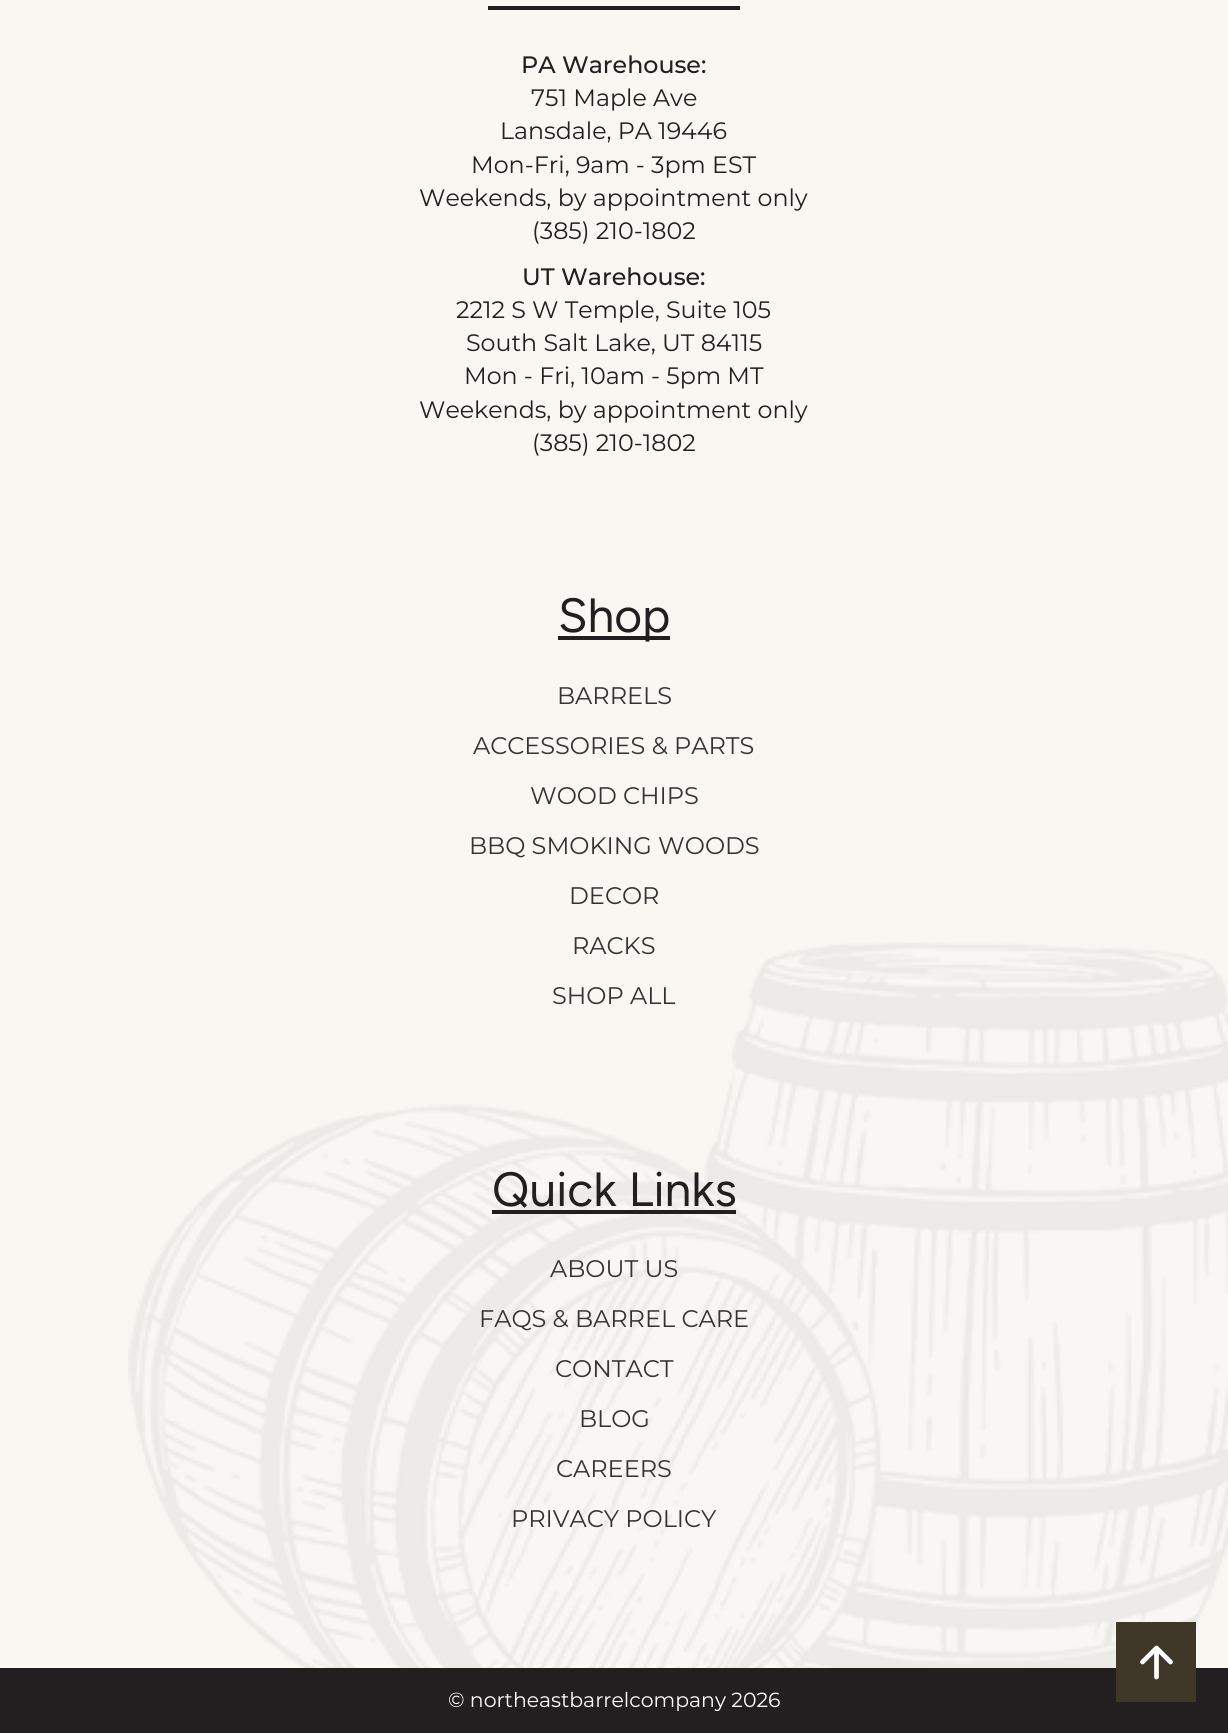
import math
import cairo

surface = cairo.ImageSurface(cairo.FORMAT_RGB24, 1228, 1733)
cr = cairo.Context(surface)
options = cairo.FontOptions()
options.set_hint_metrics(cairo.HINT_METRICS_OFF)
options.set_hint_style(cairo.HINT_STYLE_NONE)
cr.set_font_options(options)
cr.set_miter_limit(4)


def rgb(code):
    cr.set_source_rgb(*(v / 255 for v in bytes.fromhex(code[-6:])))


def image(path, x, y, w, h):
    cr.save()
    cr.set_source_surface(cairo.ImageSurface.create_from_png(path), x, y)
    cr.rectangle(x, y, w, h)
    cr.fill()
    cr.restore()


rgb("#f8f7f2")
cr.paint()
rgb("#231f20")
cr.rectangle(488, 6, 252, 4)
cr.fill()
cr.rectangle(558, 636, 112, 4)
cr.fill()
image("img/1.png", 128, 942, 1100, 726)
for x, y, w, h, color in [
    (492, 1210, 244, 4, "#231f20"),
    (0, 1668, 1228, 65, "#231f20"),
    (1116, 1622, 80, 80, "#3f3727"),
]:
    rgb(color)
    cr.rectangle(x, y, w, h)
    cr.fill()
cr.new_path()
cr.move_to(1156.5, 1677)
cr.line_to(1156.5, 1648)
cr.move_to(1156.5, 1648)
cr.line_to(1170.5, 1662)
cr.move_to(1156.5, 1648)
cr.line_to(1142.5, 1662)
rgb("#ffffff")
cr.set_line_width(4.7)
cr.set_line_cap(cairo.LINE_CAP_ROUND)
cr.set_line_join(cairo.LINE_JOIN_ROUND)
cr.stroke()
cr.select_font_face("Montserrat Medium")
cr.set_font_size(23.75)
rgb("#231f20")
cr.move_to(521, 73)
cr.show_text("PA Warehouse:")
cr.select_font_face("Montserrat")
for x, y, s in [
    (531, 106, "751 Maple Ave"),
    (500, 139, "Lansdale, PA 19446"),
    (471, 173, "Mon-Fri, 9am - 3pm EST"),
    (419, 206, "Weekends, by appointment only"),
    (532, 239, "(385) 210-1802"),
]:
    cr.move_to(x, y)
    cr.show_text(s)
cr.select_font_face("Montserrat Medium")
cr.move_to(522, 285)
cr.show_text("UT Warehouse:")
cr.select_font_face("Montserrat")
for x, y, s in [
    (456, 318, "2212 S W Temple, Suite 105"),
    (466, 351, "South Salt Lake, UT 84115"),
    (464, 384, "Mon - Fri, 10am - 5pm MT"),
    (419, 418, "Weekends, by appointment only"),
    (532, 451, "(385) 210-1802"),
]:
    cr.move_to(x, y)
    cr.show_text(s)
cr.select_font_face("Figtree")
cr.set_font_size(48)
cr.move_to(558, 632)
cr.show_text("Shop")
cr.select_font_face("Montserrat")
cr.set_font_size(24)
rgb("#333333")
for x, y, s in [
    (557, 704, "BARRELS"),
    (473, 754, "ACCESSORIES & PARTS"),
    (530, 804, "WOOD CHIPS"),
    (469, 854, "BBQ SMOKING WOODS"),
    (569, 904, "DECOR"),
    (572, 954, "RACKS"),
    (552, 1004, "SHOP ALL"),
]:
    cr.move_to(x, y)
    cr.show_text(s)
cr.select_font_face("Figtree")
cr.set_font_size(48)
rgb("#231f20")
cr.move_to(492, 1206)
cr.show_text("Quick Links")
cr.select_font_face("Montserrat")
cr.set_font_size(24)
rgb("#333333")
for x, y, s in [
    (550, 1277, "ABOUT US"),
    (479, 1327, "FAQS & BARREL CARE"),
    (555, 1377, "CONTACT"),
    (579, 1427, "BLOG"),
    (556, 1477, "CAREERS"),
    (511, 1527, "PRIVACY POLICY"),
]:
    cr.move_to(x, y)
    cr.show_text(s)
cr.set_font_size(20.4)
rgb("#ffffff")
cr.move_to(448, 1707)
cr.show_text("© northeastbarrelcompany 2026")
surface.write_to_png("page.png")
